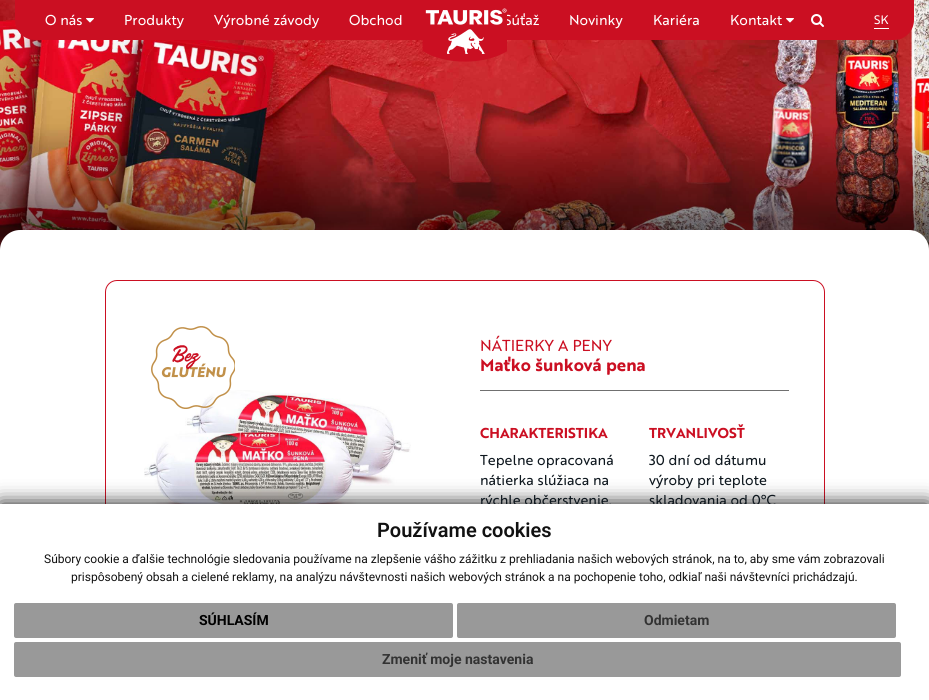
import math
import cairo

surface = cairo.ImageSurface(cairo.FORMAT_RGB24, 929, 700)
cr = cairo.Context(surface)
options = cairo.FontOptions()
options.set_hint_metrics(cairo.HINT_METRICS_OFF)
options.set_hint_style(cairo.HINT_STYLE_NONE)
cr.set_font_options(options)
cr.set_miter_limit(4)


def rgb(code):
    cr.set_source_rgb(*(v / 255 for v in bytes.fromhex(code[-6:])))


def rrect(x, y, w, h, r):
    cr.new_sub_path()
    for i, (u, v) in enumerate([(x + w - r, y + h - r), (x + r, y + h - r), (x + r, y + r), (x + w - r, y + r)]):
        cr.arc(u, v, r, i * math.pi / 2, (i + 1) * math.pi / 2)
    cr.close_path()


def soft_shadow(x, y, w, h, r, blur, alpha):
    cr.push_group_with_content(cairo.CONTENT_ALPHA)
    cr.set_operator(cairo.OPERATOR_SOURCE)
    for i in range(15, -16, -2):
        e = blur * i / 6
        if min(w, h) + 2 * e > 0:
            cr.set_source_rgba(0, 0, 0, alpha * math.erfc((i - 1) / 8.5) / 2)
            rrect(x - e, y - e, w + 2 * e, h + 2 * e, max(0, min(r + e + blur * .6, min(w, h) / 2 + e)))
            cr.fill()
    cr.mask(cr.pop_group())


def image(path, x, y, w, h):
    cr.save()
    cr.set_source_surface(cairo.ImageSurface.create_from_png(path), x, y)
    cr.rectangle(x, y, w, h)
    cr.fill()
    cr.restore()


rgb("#ffffff")
cr.paint()
image("img/1.png", 0, 0, 929, 250)
rgb("#cb0f22")
cr.new_path()
cr.move_to(15, 0)
cr.line_to(914, 0)
cr.line_to(914, 20)
cr.curve_to(914, 31, 905, 40, 894, 40)
cr.line_to(35, 40)
cr.curve_to(24, 40, 15, 31, 15, 20)
cr.close_path()
cr.fill()
image("img/3.png", 86, 18, 8, 5)
image("img/3.png", 786, 18, 8, 5)
image("img/4.png", 811, 14, 13, 13)
rgb("#ffffff")
cr.rectangle(874, 28, 15, 1)
cr.fill()
cr.new_path()
cr.move_to(20, 230)
cr.line_to(909, 230)
cr.curve_to(920, 230, 929, 239, 929, 250)
cr.line_to(0, 250)
cr.curve_to(0, 239, 9, 230, 20, 230)
cr.close_path()
cr.fill()
rrect(105.5, 280.5, 719, 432, 11.5)
rgb("#cb0f22")
cr.set_line_width(1)
cr.stroke()
image("img/6.png", 144, 390, 267, 114)
image("img/5.png", 151, 326, 84, 83)
rgb("#707070")
cr.rectangle(480, 390, 309, 1)
cr.fill()
rgb("#111111")
soft_shadow(0, 504, 929, 196, 0, 10, 1)
cr.select_font_face("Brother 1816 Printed")
cr.set_font_size(14)
rgb("#ffffff")
for x, y, s in [
    (45, 25, "O nás"),
    (124, 25, "Produkty"),
    (214, 25, "Výrobné závody"),
    (349, 25, "Obchod"),
    (504, 25, "Súťaž"),
]:
    cr.move_to(x, y)
    cr.show_text(s)
image("img/2.png", 422, 8, 85, 54)
for x, y, s in [
    (569, 25, "Novinky"),
    (653, 25, "Kariéra"),
    (730, 25, "Kontakt"),
]:
    cr.move_to(x, y)
    cr.show_text(s)
cr.set_font_size(12)
cr.move_to(874, 24)
cr.show_text("SK")
cr.set_font_size(15.5)
rgb("#cb0f22")
cr.move_to(480, 351)
cr.show_text("NÁTIERKY A PENY")
cr.select_font_face("Brother 1816 Printed", cairo.FONT_SLANT_NORMAL, cairo.FONT_WEIGHT_BOLD)
cr.set_font_size(17)
cr.move_to(480, 371)
cr.show_text("Maťko šunková pena")
cr.set_font_size(14)
cr.move_to(480, 438)
cr.show_text("CHARAKTERISTIKA")
cr.select_font_face("Brother 1816 Printed")
rgb("#0f181f")
for x, y, s in [
    (480, 465, "Tepelne opracovaná"),
    (480, 485, "nátierka slúžiaca na"),
    (480, 505, "rýchle občerstvenie."),
]:
    cr.move_to(x, y)
    cr.show_text(s)
cr.select_font_face("Brother 1816 Printed", cairo.FONT_SLANT_NORMAL, cairo.FONT_WEIGHT_BOLD)
rgb("#cb0f22")
cr.move_to(649, 438)
cr.show_text("TRVANLIVOSŤ")
cr.select_font_face("Brother 1816 Printed")
rgb("#0f181f")
for x, y, s in [
    (649, 465, "30 dní od dátumu"),
    (649, 485, "výroby pri teplote"),
    (649, 505, "skladovania od 0°C"),
]:
    cr.move_to(x, y)
    cr.show_text(s)
rgb("#ffffff")
cr.rectangle(0, 504, 929, 196)
cr.fill()
cr.select_font_face("Roboto SemiBold")
cr.set_font_size(20)
rgb("#111111")
cr.move_to(377, 537)
cr.show_text("Používame cookies")
cr.select_font_face("Roboto")
cr.set_font_size(12)
cr.move_to(44, 563)
cr.show_text("Súbory cookie a ďalšie technológie sledovania používame na zlepšenie vášho zážitku z prehliadania našich webových stránok, na to, aby sme vám zobrazovali")
cr.move_to(71, 581)
cr.show_text("prispôsobený obsah a cielené reklamy, na analýzu návštevnosti našich webových stránok a na pochopenie toho, odkiaľ naši návštevníci prichádzajú.")
rgb("#999999")
rrect(14, 603, 439, 35, 2)
cr.fill()
cr.select_font_face("Roboto", cairo.FONT_SLANT_NORMAL, cairo.FONT_WEIGHT_BOLD)
cr.set_font_size(14)
rgb("#000000")
cr.move_to(199, 625)
cr.show_text("SÚHLASÍM")
rgb("#999999")
rrect(457, 603, 439, 35, 2)
cr.fill()
rgb("#333333")
cr.move_to(644, 625)
cr.show_text("Odmietam")
rgb("#999999")
rrect(14, 642, 887, 35, 2)
cr.fill()
rgb("#333333")
cr.move_to(382, 664)
cr.show_text("Zmeniť moje nastavenia")
surface.write_to_png("page.png")
